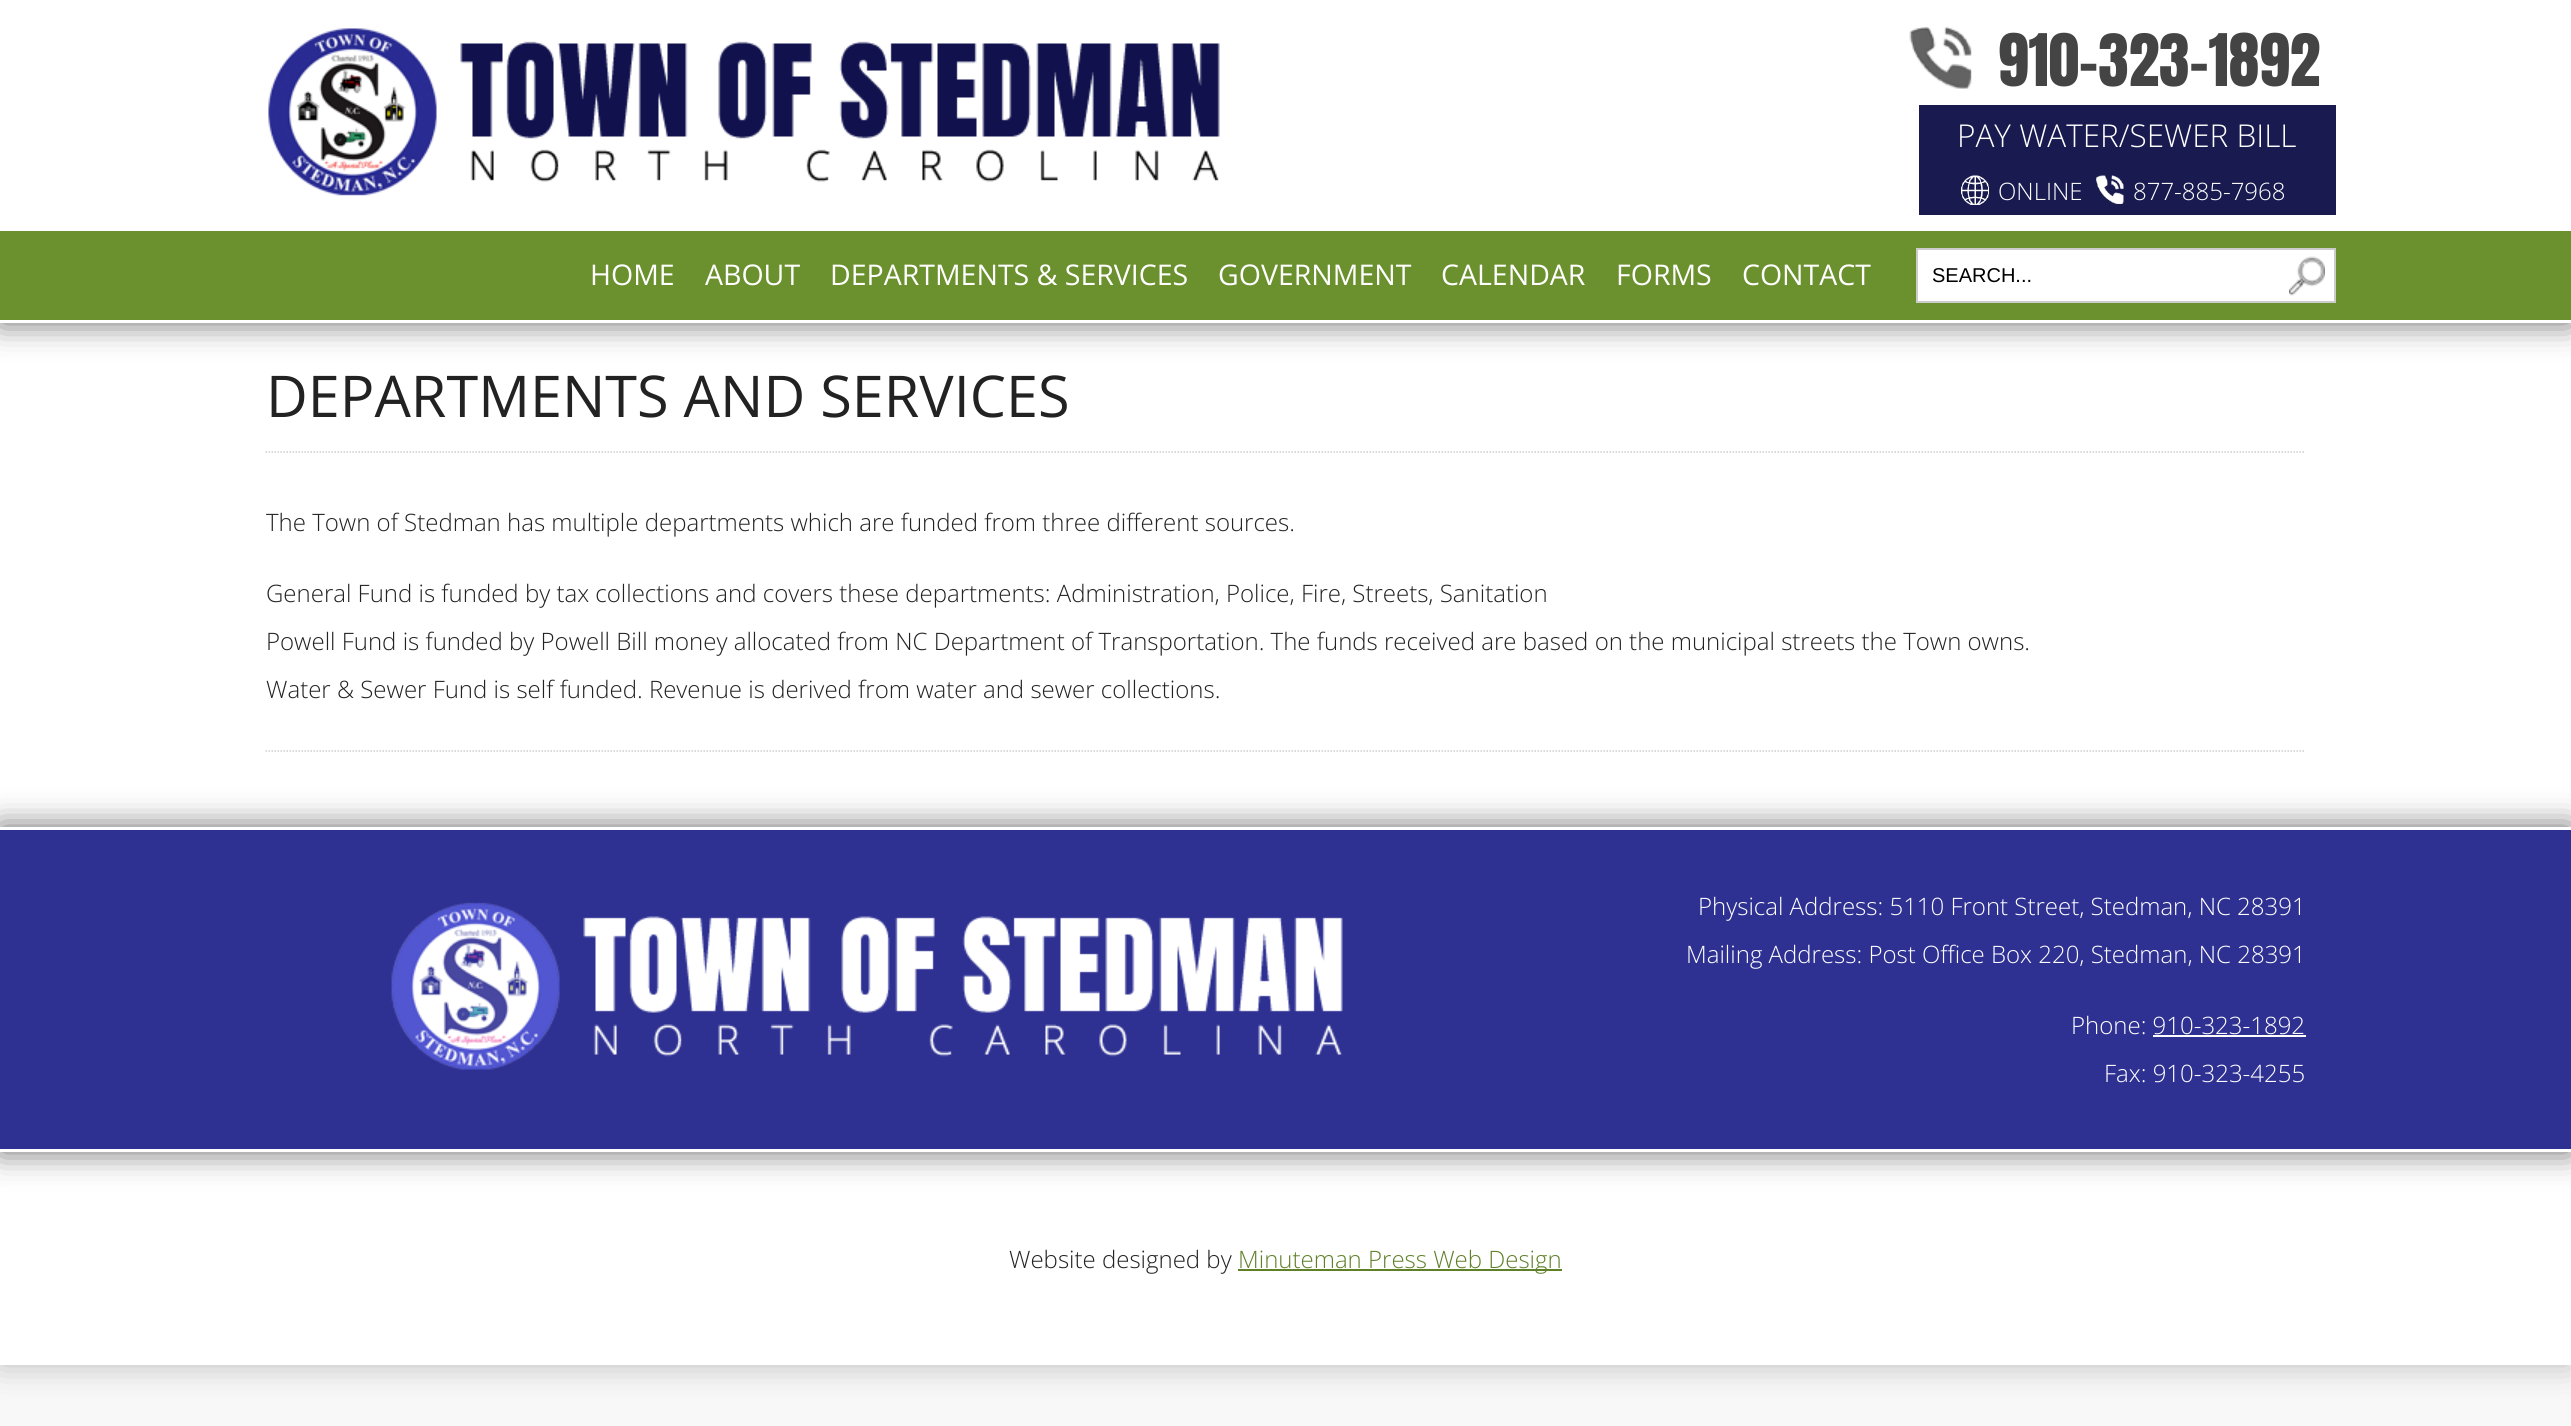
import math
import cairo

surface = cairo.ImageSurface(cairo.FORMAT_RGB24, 2571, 1426)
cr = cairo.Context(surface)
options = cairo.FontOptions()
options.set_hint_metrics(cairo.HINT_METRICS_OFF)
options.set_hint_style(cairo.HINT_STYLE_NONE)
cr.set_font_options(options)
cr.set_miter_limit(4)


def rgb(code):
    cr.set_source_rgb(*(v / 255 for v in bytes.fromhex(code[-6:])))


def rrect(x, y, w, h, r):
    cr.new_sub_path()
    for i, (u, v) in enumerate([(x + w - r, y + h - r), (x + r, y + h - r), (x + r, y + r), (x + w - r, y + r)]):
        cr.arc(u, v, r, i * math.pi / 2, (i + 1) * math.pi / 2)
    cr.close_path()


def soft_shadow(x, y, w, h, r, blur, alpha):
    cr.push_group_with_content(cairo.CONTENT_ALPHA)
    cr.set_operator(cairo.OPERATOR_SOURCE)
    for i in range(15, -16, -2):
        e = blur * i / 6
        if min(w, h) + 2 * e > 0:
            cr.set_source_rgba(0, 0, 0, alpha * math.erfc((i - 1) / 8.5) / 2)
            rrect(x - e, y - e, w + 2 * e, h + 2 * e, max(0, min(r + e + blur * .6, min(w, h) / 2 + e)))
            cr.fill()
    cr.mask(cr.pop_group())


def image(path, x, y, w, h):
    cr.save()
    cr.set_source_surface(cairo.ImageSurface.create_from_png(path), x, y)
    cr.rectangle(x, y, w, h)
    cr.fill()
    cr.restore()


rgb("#f8f8f8")
cr.paint()
rgb("#000000")
soft_shadow(0, 0, 2571, 1365, 0, 16.5, 0.25)
rgb("#ffffff")
cr.rectangle(0, 323, 2571, 1042)
cr.fill()
rgb("#000000")
soft_shadow(0, 228, 2571, 95, 0, 16, 0.59)
rgb("#ffffff")
cr.rectangle(0, 0, 2571, 231)
cr.fill()
image("img/1.png", 268, 28, 952, 168)
image("img/2.png", 1909, 27, 63, 62)
rgb("#191a4f")
cr.rectangle(1919, 105, 417, 110)
cr.fill()
image("img/3.png", 1961, 175, 28, 30)
image("img/4.png", 2096, 175, 28, 29)
rgb("#6b902e")
cr.rectangle(0, 231, 2571, 89)
cr.fill()
rgb("#ffffff")
cr.rectangle(0, 320, 2571, 3)
cr.fill()
cr.rectangle(1917, 249, 418, 53)
cr.fill_preserve()
rgb("#cccccc")
cr.stroke()
image("img/5.png", 2289, 256, 36, 40)
cr.new_path()
cr.move_to(265.5, 452)
cr.line_to(2305.5, 452)
cr.set_line_width(1.5)
cr.set_dash([1.5, 1.5])
cr.stroke()
cr.new_path()
cr.move_to(265.5, 751)
cr.line_to(2305.5, 751)
cr.stroke()
rgb("#000000")
soft_shadow(0, 827, 2571, 325, 0, 16, 0.59)
for x, y, w, h, color in [
    (0, 830, 2571, 319, "#2e3192"),
    (0, 827, 2571, 3, "#ffffff"),
    (0, 1149, 2571, 3, "#ffffff"),
]:
    rgb(color)
    cr.rectangle(x, y, w, h)
    cr.fill()
image("img/6.png", 391, 902, 952, 168)
cr.rectangle(2153, 1035, 153, 2)
cr.fill()
rgb("#5f8029")
cr.rectangle(1238, 1269, 324, 2)
cr.fill()
cr.select_font_face("Anton")
cr.set_font_size(61.5)
rgb("#444444")
cr.move_to(1998, 86)
cr.show_text("910-323-1892")
cr.select_font_face("Open Sans Light")
cr.set_font_size(31.5)
rgb("#ffffff")
cr.move_to(1957, 147)
cr.show_text("PAY WATER/SEWER BILL")
cr.set_font_size(24)
cr.move_to(1998, 200)
cr.show_text("ONLINE")
cr.move_to(2133, 200)
cr.show_text("877-885-7968")
cr.select_font_face("Open Sans")
cr.set_font_size(28.5)
for x, y, s in [
    (590, 285, "HOME"),
    (705, 285, "ABOUT"),
    (830, 285, "DEPARTMENTS & SERVICES"),
    (1218, 285, "GOVERNMENT"),
    (1441, 285, "CALENDAR"),
    (1616, 285, "FORMS"),
    (1742, 285, "CONTACT"),
]:
    cr.move_to(x, y)
    cr.show_text(s)
cr.select_font_face("Liberation Sans")
cr.set_font_size(20)
rgb("#000000")
cr.move_to(1932, 282)
cr.show_text("SEARCH...")
cr.select_font_face("Open Sans")
cr.set_font_size(57.6)
rgb("#222222")
cr.move_to(266, 417)
cr.show_text("DEPARTMENTS AND SERVICES")
cr.select_font_face("Open Sans Light")
cr.set_font_size(24)
for x, y, s in [
    (266, 531, "The Town of Stedman has multiple departments which are funded from three different sources."),
    (266, 602, "General Fund is funded by tax collections and covers these departments: Administration, Police, Fire, Streets, Sanitation"),
    (266, 650, "Powell Fund is funded by Powell Bill money allocated from NC Department of Transportation. The funds received are based on the municipal streets the Town owns."),
    (266, 698, "Water & Sewer Fund is self funded. Revenue is derived from water and sewer collections."),
]:
    cr.move_to(x, y)
    cr.show_text(s)
rgb("#ffffff")
for x, y, s in [
    (1698, 915, "Physical Address: 5110 Front Street, Stedman, NC 28391"),
    (1686, 963, "Mailing Address: Post Office Box 220, Stedman, NC 28391"),
    (2071, 1034, "Phone: 910-323-1892"),
    (2104, 1082, "Fax: 910-323-4255"),
]:
    cr.move_to(x, y)
    cr.show_text(s)
rgb("#222222")
cr.move_to(1009, 1268)
cr.show_text("Website designed by")
rgb("#5f8029")
cr.move_to(1238, 1268)
cr.show_text("Minuteman Press Web Design")
surface.write_to_png("page.png")
